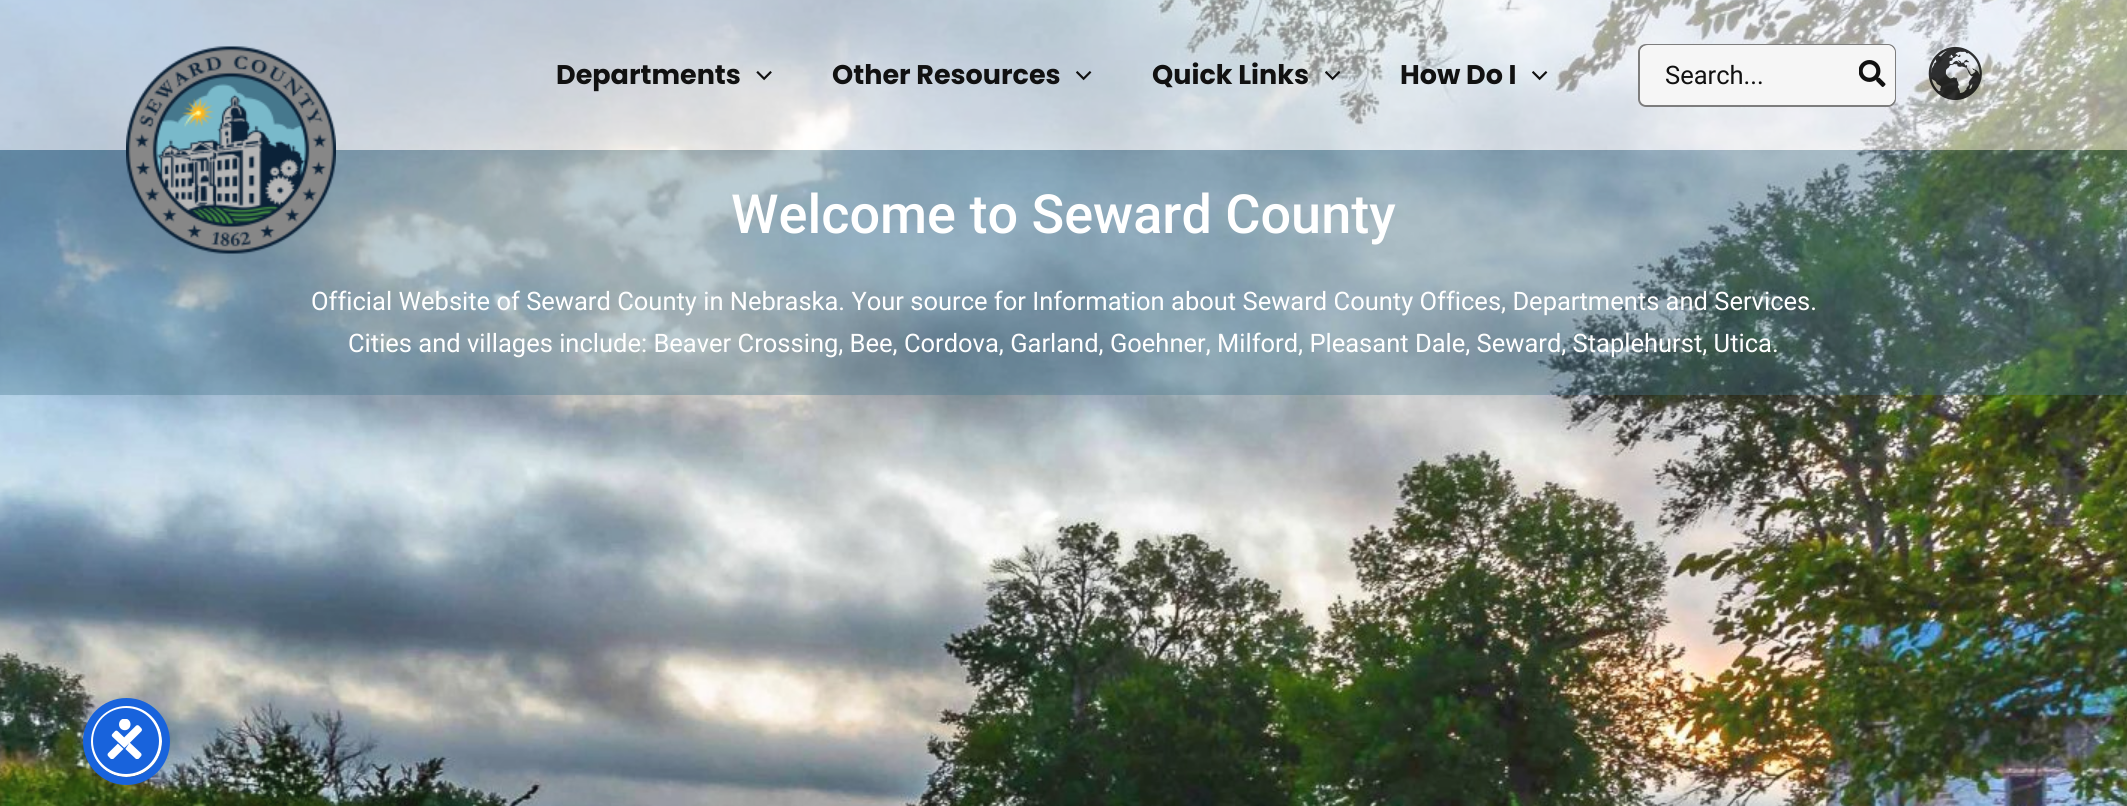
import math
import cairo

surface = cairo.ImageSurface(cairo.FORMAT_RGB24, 2127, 806)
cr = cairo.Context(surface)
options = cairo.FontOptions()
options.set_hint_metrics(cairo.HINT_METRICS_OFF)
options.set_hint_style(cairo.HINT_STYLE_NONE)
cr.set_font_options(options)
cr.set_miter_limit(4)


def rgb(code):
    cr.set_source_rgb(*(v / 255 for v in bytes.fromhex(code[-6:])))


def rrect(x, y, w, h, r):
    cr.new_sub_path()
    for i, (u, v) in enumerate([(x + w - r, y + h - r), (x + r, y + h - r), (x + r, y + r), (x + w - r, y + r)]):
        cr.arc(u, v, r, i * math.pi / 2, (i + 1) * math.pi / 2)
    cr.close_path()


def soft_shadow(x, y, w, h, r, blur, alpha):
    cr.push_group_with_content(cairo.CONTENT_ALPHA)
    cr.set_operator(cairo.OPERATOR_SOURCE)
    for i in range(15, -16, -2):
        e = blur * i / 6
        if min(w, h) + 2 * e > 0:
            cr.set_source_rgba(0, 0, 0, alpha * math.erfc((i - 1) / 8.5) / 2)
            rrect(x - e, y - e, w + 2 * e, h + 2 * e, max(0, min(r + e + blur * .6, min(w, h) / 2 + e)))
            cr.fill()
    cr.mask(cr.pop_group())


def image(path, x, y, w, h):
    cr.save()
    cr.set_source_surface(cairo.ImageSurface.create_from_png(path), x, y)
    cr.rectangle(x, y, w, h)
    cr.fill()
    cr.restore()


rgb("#ffffff")
cr.paint()
image("img/8.png", 0, 0, 2127, 806)
cr.set_source_rgba(1, 1, 1, 0.53)
cr.rectangle(0, 0, 2127, 150)
cr.fill()
cr.set_source_rgba(0.275, 0.467, 0.549, 0.37)
cr.rectangle(0, 150, 2127, 245)
cr.fill()
image("img/1.png", 126, 46, 210, 208)
image("img/2.png", 756, 71, 16, 10)
image("img/3.png", 1076, 71, 16, 10)
image("img/4.png", 1325, 71, 15, 10)
image("img/5.png", 1532, 71, 16, 10)
rgb("#f6f6f6")
rrect(1638, 44, 258, 63, 8)
cr.fill()
rrect(1639, 45, 256, 61, 7)
cr.set_source_rgba(0.067, 0.067, 0.067, 0.53)
cr.stroke()
rgb("#f6f6f6")
rrect(1640, 45, 255, 60, 8)
cr.fill()
rrect(1853, 45, 42, 60, 8)
cr.fill()
image("img/6.png", 1859, 60, 27, 27)
image("img/7.png", 1928, 46, 54, 55)
rgb("#5d6494")
soft_shadow(90, 708, 72, 72, 36, 3, 0.2)
rgb("#252c61")
soft_shadow(90, 713, 72, 72, 36, 11, 0.15)
rgb("#1863dc")
cr.arc(126, 741, 34.5, 0, 2 * math.pi)
cr.fill_preserve()
rgb("#ffffff")
cr.set_line_width(3)
cr.stroke()
cr.arc(126.5, 741.5, 39.5, 0, 2 * math.pi)
rgb("#1863dc")
cr.set_line_width(8)
cr.stroke()
image("img/9.png", 107, 719, 35, 40)
cr.select_font_face("Poppins", cairo.FONT_SLANT_NORMAL, cairo.FONT_WEIGHT_BOLD)
cr.set_font_size(27)
rgb("#111111")
for x, y, s in [
    (556, 84, "Departments"),
    (832, 84, "Other Resources"),
    (1152, 84, "Quick Links"),
    (1400, 84, "How Do I"),
]:
    cr.move_to(x, y)
    cr.show_text(s)
cr.select_font_face("Roboto")
cr.set_font_size(25.5)
cr.move_to(1665, 84)
cr.show_text("Search...")
cr.select_font_face("Roboto Medium")
cr.set_font_size(54)
rgb("#ffffff")
cr.move_to(731, 233)
cr.show_text("Welcome to Seward County")
cr.select_font_face("Roboto")
cr.set_font_size(25.5)
cr.move_to(311, 310)
cr.show_text("Official Website of Seward County in Nebraska. Your source for Information about Seward County Offices, Departments and Services.")
cr.move_to(348, 352)
cr.show_text("Cities and villages include: Beaver Crossing, Bee, Cordova, Garland, Goehner, Milford, Pleasant Dale, Seward, Staplehurst, Utica.")
surface.write_to_png("page.png")
